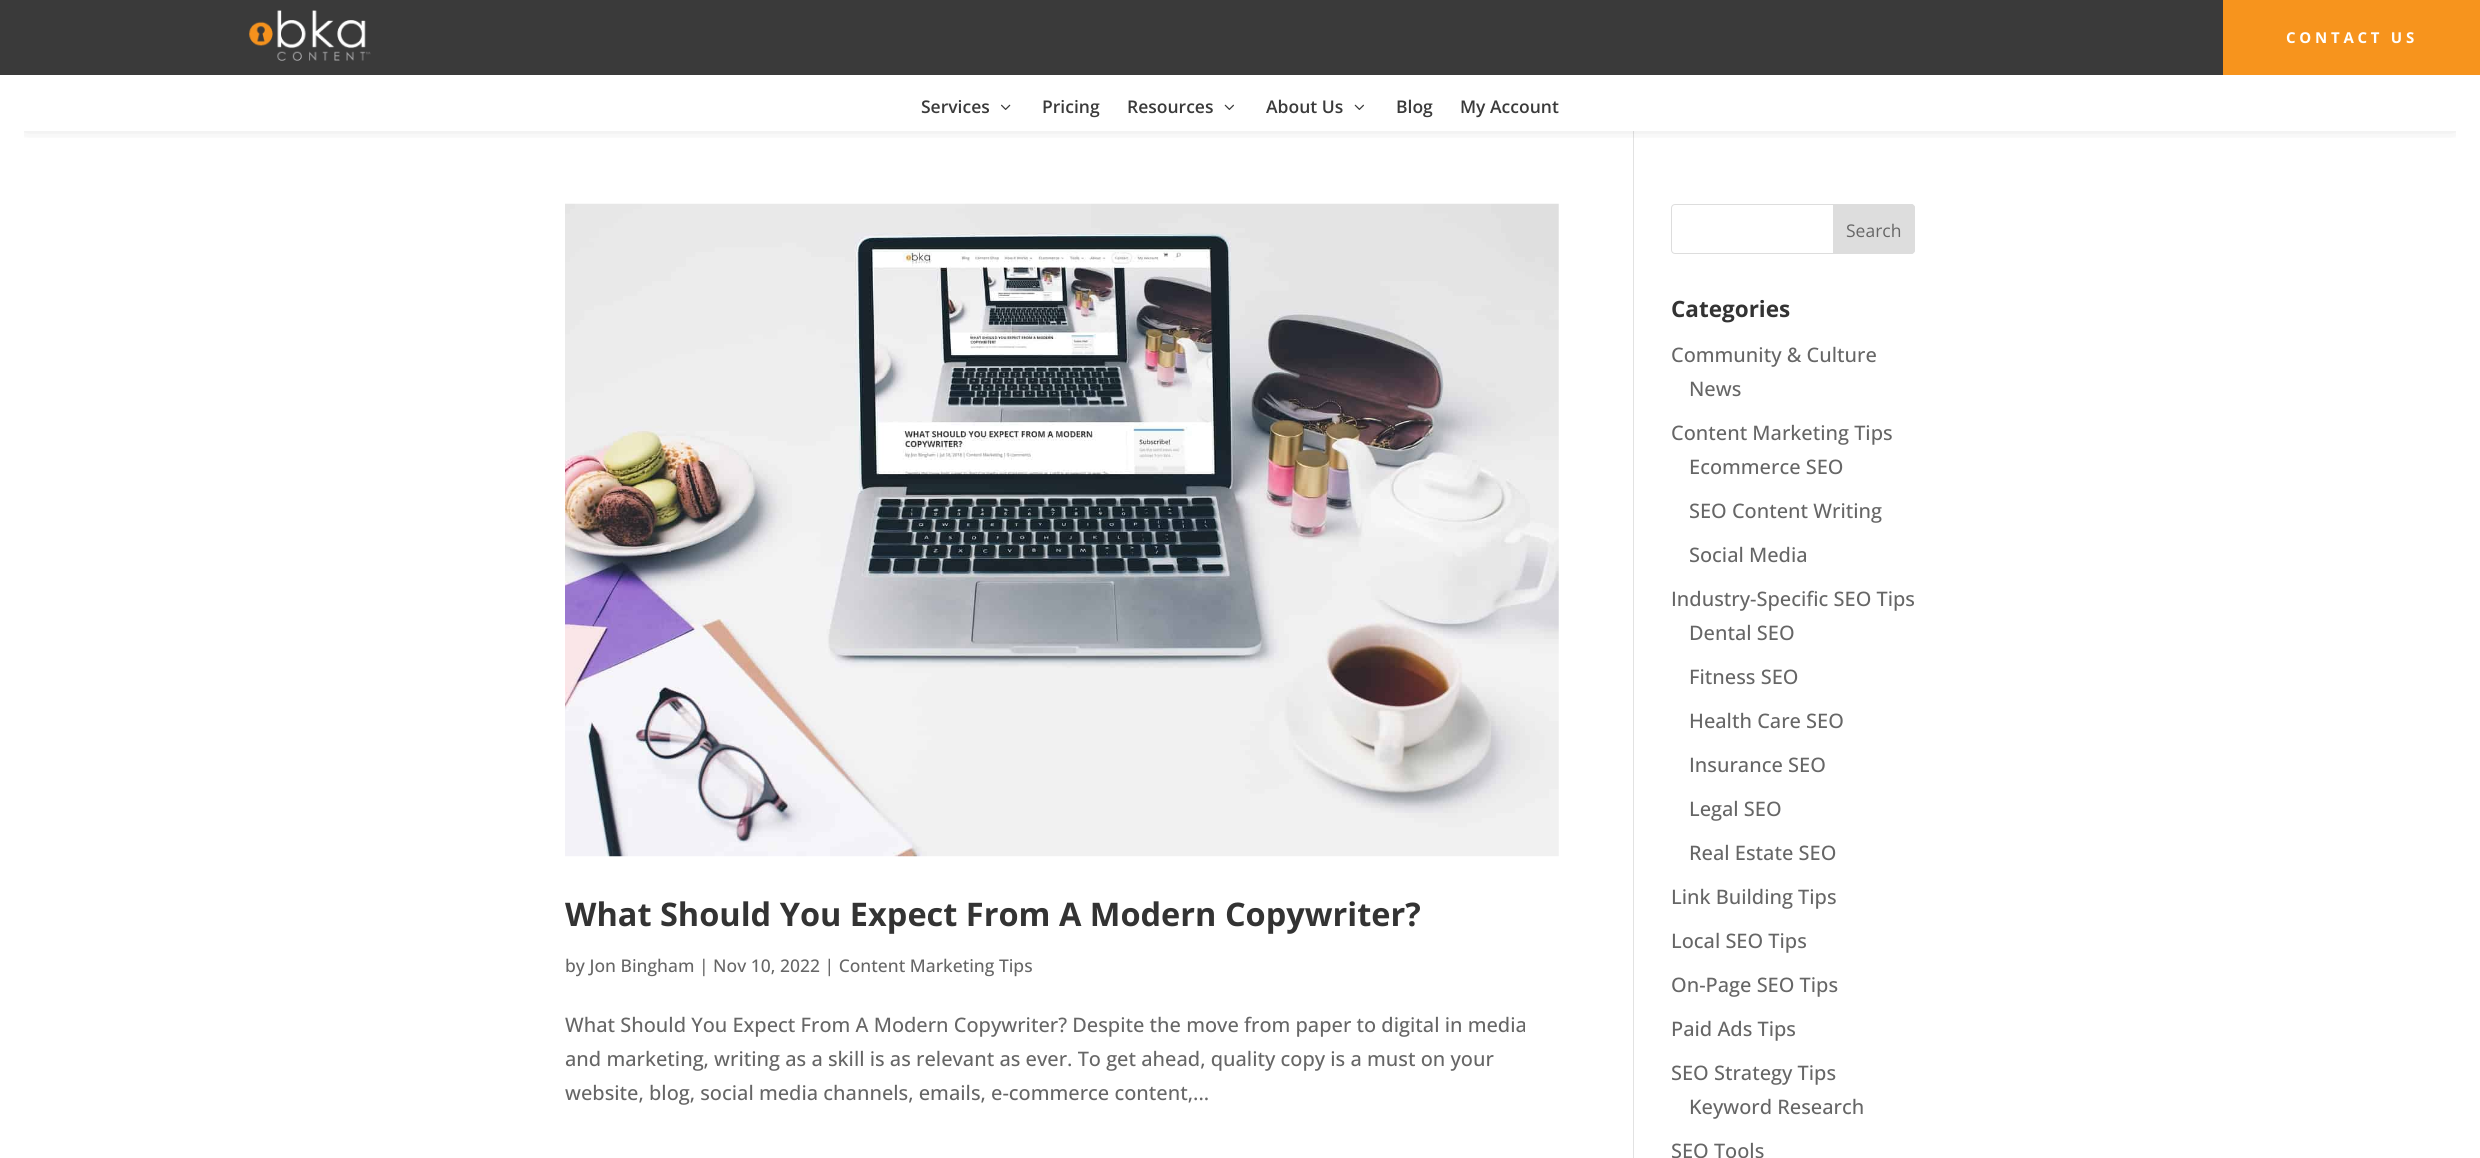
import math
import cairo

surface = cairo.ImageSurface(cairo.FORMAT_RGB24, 2480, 1158)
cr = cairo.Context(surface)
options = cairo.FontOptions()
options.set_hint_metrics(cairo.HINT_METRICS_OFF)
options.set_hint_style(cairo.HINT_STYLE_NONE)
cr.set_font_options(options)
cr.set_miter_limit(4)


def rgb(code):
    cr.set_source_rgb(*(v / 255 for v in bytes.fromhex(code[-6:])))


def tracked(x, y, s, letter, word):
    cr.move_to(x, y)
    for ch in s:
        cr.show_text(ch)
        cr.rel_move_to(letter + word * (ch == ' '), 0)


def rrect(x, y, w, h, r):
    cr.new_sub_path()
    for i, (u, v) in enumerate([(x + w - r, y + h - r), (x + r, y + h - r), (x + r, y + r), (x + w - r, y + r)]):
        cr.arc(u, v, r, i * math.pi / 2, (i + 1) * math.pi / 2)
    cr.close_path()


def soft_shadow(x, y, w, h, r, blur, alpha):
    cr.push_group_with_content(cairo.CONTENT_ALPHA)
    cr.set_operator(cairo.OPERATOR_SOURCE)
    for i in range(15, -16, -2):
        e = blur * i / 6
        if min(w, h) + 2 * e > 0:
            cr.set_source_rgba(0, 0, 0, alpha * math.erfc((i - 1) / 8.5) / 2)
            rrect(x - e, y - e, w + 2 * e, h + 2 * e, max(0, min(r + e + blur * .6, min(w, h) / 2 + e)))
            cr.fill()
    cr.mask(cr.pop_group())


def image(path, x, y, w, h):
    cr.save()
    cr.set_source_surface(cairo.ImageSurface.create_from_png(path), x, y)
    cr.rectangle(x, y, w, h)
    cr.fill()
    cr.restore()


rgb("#ffffff")
cr.paint()
rgb("#e2e2e2")
cr.rectangle(1633, 131, 1, 1027)
cr.fill()
cr.save()
cr.rectangle(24, 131, 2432, 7)
cr.clip()
rgb("#000000")
soft_shadow(25, 40, 2430, 81, 0, 11, 0.3)
cr.restore()
rgb("#3a3a3a")
cr.rectangle(0, 0, 2223, 75)
cr.fill()
image("img/1.png", 249, 10, 122, 51)
rgb("#f7941d")
cr.rectangle(2223, 0, 257, 75)
cr.fill()
image("img/2.png", 1001, 104, 10, 6)
image("img/3.png", 1224, 104, 10, 6)
image("img/3.png", 1354, 104, 10, 6)
image("img/4.png", 565, 203, 994, 654)
rrect(1671.5, 204.5, 243, 49, 3.5)
rgb("#dddddd")
cr.set_line_width(1)
cr.stroke()
cr.new_path()
cr.move_to(1833.5, 204.5)
cr.line_to(1911, 204.5)
cr.curve_to(1913, 204.5, 1914.5, 206, 1914.5, 208)
cr.line_to(1914.5, 250)
cr.curve_to(1914.5, 252, 1913, 253.5, 1911, 253.5)
cr.line_to(1833.5, 253.5)
cr.close_path()
cr.fill_preserve()
cr.stroke()
cr.select_font_face("Open Sans", cairo.FONT_SLANT_NORMAL, cairo.FONT_WEIGHT_BOLD)
cr.set_font_size(15)
rgb("#ffffff")
tracked(2286, 43, "CONTACT US", 3.75, 0)
cr.select_font_face("Open Sans SemiBold")
cr.set_font_size(17.5)
rgb("#3a3a3a")
for x, y, s in [
    (921, 113, "Services"),
    (1042, 113, "Pricing"),
    (1127, 113, "Resources"),
    (1266, 113, "About Us"),
    (1396, 113, "Blog"),
    (1460, 113, "My Account"),
]:
    cr.move_to(x, y)
    cr.show_text(s)
cr.select_font_face("Open Sans", cairo.FONT_SLANT_NORMAL, cairo.FONT_WEIGHT_BOLD)
cr.set_font_size(32.5)
rgb("#333333")
cr.move_to(565, 926)
cr.show_text("What Should You Expect From A Modern Copywriter?")
cr.select_font_face("Open Sans Medium")
cr.set_font_size(17.5)
rgb("#666666")
cr.move_to(565, 972)
cr.show_text("by Jon Bingham | Nov 10, 2022 | Content Marketing Tips")
cr.set_font_size(20)
for x, y, s in [
    (565, 1032, "What Should You Expect From A Modern Copywriter? Despite the move from paper to digital in media"),
    (565, 1066, "and marketing, writing as a skill is as relevant as ever. To get ahead, quality copy is a must on your"),
    (565, 1100, "website, blog, social media channels, emails, e-commerce content,..."),
]:
    cr.move_to(x, y)
    cr.show_text(s)
cr.select_font_face("Open Sans")
cr.set_font_size(17.5)
cr.move_to(1846, 237)
cr.show_text("Search")
cr.select_font_face("Open Sans", cairo.FONT_SLANT_NORMAL, cairo.FONT_WEIGHT_BOLD)
cr.set_font_size(22.5)
rgb("#333333")
cr.move_to(1671, 317)
cr.show_text("Categories")
cr.select_font_face("Open Sans Medium")
cr.set_font_size(20)
rgb("#666666")
for x, y, s in [
    (1671, 362, "Community & Culture"),
    (1689, 396, "News"),
    (1671, 440, "Content Marketing Tips"),
    (1689, 474, "Ecommerce SEO"),
    (1689, 518, "SEO Content Writing"),
    (1689, 562, "Social Media"),
    (1671, 606, "Industry-Specific SEO Tips"),
    (1689, 640, "Dental SEO"),
    (1689, 684, "Fitness SEO"),
    (1689, 728, "Health Care SEO"),
    (1689, 772, "Insurance SEO"),
    (1689, 816, "Legal SEO"),
    (1689, 860, "Real Estate SEO"),
    (1671, 904, "Link Building Tips"),
    (1671, 948, "Local SEO Tips"),
    (1671, 992, "On-Page SEO Tips"),
    (1671, 1036, "Paid Ads Tips"),
    (1671, 1080, "SEO Strategy Tips"),
    (1689, 1114, "Keyword Research"),
    (1671, 1158, "SEO Tools"),
]:
    cr.move_to(x, y)
    cr.show_text(s)
surface.write_to_png("page.png")
